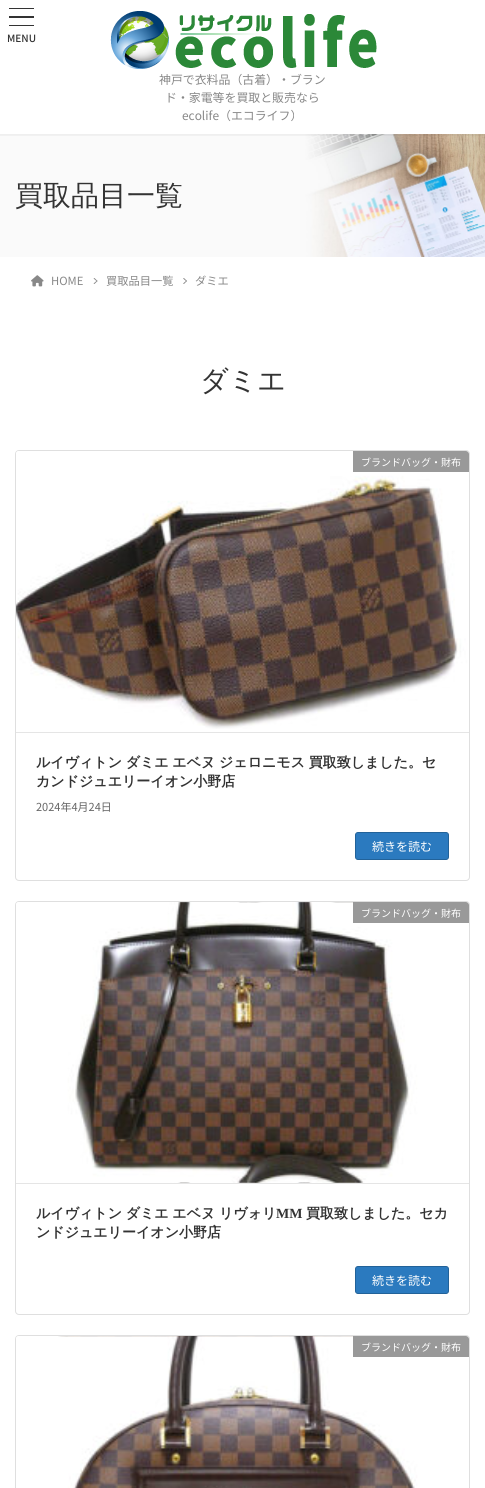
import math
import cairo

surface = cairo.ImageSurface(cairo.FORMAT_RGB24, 485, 1488)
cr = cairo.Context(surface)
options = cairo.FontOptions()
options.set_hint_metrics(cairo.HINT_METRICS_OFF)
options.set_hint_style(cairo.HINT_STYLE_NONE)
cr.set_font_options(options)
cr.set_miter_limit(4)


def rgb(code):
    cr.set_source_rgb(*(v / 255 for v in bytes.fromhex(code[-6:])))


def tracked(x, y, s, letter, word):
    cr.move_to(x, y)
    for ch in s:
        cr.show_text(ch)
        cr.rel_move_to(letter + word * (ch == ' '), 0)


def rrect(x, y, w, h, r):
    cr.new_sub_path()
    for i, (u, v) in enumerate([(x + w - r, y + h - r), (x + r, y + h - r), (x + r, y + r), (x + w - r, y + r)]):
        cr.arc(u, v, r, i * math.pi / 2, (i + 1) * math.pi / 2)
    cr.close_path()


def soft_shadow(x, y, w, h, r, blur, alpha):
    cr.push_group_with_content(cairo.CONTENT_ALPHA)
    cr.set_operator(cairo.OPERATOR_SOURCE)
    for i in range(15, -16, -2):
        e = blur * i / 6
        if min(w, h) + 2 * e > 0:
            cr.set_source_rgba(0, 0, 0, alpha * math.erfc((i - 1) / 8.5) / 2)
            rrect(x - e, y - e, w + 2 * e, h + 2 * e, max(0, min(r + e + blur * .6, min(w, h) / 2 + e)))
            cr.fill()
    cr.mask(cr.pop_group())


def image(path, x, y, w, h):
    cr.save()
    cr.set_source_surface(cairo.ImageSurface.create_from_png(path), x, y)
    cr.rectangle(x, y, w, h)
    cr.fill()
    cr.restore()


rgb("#ffffff")
cr.paint()
image("img/2.png", 0, 134, 485, 123)
cr.save()
cr.rectangle(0, 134, 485, 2)
cr.clip()
rgb("#000000")
soft_shadow(-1, 0, 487, 136, 0, 1, 0.05)
cr.restore()
for x, y, w, h, color in [
    (9, 8, 25, 1, "#333333"),
    (9, 16, 25, 2, "#333333"),
    (9, 25, 25, 1, "#333333"),
]:
    rgb(color)
    cr.rectangle(x, y, w, h)
    cr.fill()
image("img/1.png", 110, 11, 267, 58)
image("img/3.png", 31, 275, 13, 12)
rgb("#888888")
cr.new_path()
cr.move_to(94.5, 278)
cr.line_to(97.5, 281)
cr.line_to(97, 281.5)
cr.line_to(93.5, 278.5)
cr.close_path()
cr.fill()
cr.new_path()
cr.move_to(97, 280.5)
cr.line_to(97.5, 281)
cr.line_to(94.5, 284)
cr.line_to(93.5, 283.5)
cr.close_path()
cr.fill()
cr.new_path()
cr.move_to(184, 278)
cr.line_to(187, 281)
cr.line_to(186.5, 281.5)
cr.line_to(183, 278.5)
cr.close_path()
cr.fill()
cr.new_path()
cr.move_to(186.5, 280.5)
cr.line_to(187, 281)
cr.line_to(184, 284)
cr.line_to(183, 283.5)
cr.close_path()
cr.fill()
rrect(15.5, 450.5, 454, 430, 3.5)
rgb("#dfdfdf")
cr.set_line_width(1)
cr.stroke()
image("img/4.png", 16, 451, 453, 278)
rgb("#e5e5e5")
cr.rectangle(16, 732, 453, 1)
cr.fill()
rgb("#999999")
cr.new_path()
cr.move_to(353, 451)
cr.line_to(466, 451)
cr.curve_to(467.5, 451, 469, 452.5, 469, 454)
cr.line_to(469, 472)
cr.line_to(353, 472)
cr.close_path()
cr.fill()
rgb("#2b7abf")
rrect(355.5, 832.5, 93, 27, 2.5)
cr.fill_preserve()
rgb("#226299")
cr.stroke()
rrect(15.5, 901.5, 454, 413, 3.5)
rgb("#dfdfdf")
cr.stroke()
image("img/5.png", 16, 902, 453, 281)
rgb("#e5e5e5")
cr.rectangle(16, 1183, 453, 1)
cr.fill()
rgb("#999999")
cr.new_path()
cr.move_to(353, 902)
cr.line_to(466, 902)
cr.curve_to(467.5, 902, 469, 903.5, 469, 905)
cr.line_to(469, 923)
cr.line_to(353, 923)
cr.close_path()
cr.fill()
rgb("#2b7abf")
rrect(355.5, 1266.5, 93, 27, 2.5)
cr.fill_preserve()
rgb("#226299")
cr.stroke()
rrect(15.5, 1335.5, 454, 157, 3.5)
rgb("#dfdfdf")
cr.stroke()
image("img/6.png", 16, 1336, 453, 152)
rgb("#999999")
cr.new_path()
cr.move_to(353, 1336)
cr.line_to(466, 1336)
cr.curve_to(467.5, 1336, 469, 1337.5, 469, 1339)
cr.line_to(469, 1357)
cr.line_to(353, 1357)
cr.close_path()
cr.fill()
cr.select_font_face("Noto Sans JP Medium")
cr.set_font_size(10)
rgb("#333333")
cr.move_to(7, 42)
cr.show_text("MENU")
cr.select_font_face("Noto Sans JP")
cr.set_font_size(11.9)
rgb("#888888")
for x, y, s in [
    (159, 84, "神戸で衣料品（古着）・ブラン"),
    (165, 102, "ド・家電等を買取と販売なら"),
    (182, 120, "ecolife（エコライフ）"),
]:
    cr.move_to(x, y)
    cr.show_text(s)
cr.select_font_face("WenQuanYi Zen Hei Medium")
cr.set_font_size(28)
rgb("#333333")
cr.move_to(15, 205)
cr.show_text("買取品目一覧")
cr.select_font_face("Noto Sans JP")
cr.set_font_size(11.25)
rgb("#888888")
for x, y, s in [
    (51, 285, "HOME"),
    (106, 285, "買取品目一覧"),
    (195, 285, "ダミエ"),
]:
    cr.move_to(x, y)
    cr.show_text(s)
cr.select_font_face("WenQuanYi Zen Hei Medium")
cr.set_font_size(28)
rgb("#333333")
cr.move_to(200, 390)
cr.show_text("ダミエ")
cr.select_font_face("Noto Sans JP")
cr.set_font_size(10)
rgb("#ffffff")
cr.move_to(361, 466)
cr.show_text("ブランドバッグ・財布")
cr.select_font_face("WenQuanYi Zen Hei", cairo.FONT_SLANT_NORMAL, cairo.FONT_WEIGHT_BOLD)
cr.set_font_size(14)
rgb("#333333")
tracked(36, 767, "ルイヴィトン ダミエ エベヌ ジェロニモス 買取致しました。セ", 0, -0.5)
cr.move_to(36, 786)
cr.show_text("カンドジュエリーイオン小野店")
cr.select_font_face("Noto Sans JP")
cr.set_font_size(11)
rgb("#666666")
cr.move_to(36, 811)
cr.show_text("2024年4月24日")
cr.set_font_size(12)
rgb("#ffffff")
cr.move_to(372, 851)
cr.show_text("続きを読む")
cr.set_font_size(10)
cr.move_to(361, 917)
cr.show_text("ブランドバッグ・財布")
cr.select_font_face("WenQuanYi Zen Hei", cairo.FONT_SLANT_NORMAL, cairo.FONT_WEIGHT_BOLD)
cr.set_font_size(14)
rgb("#333333")
tracked(36, 1218, "ルイヴィトン ダミエ エベヌ リヴォリ", 0, -0.5)
cr.select_font_face("Liberation Serif", cairo.FONT_SLANT_NORMAL, cairo.FONT_WEIGHT_BOLD)
cr.move_to(276, 1218)
cr.show_text("MM")
cr.select_font_face("WenQuanYi Zen Hei", cairo.FONT_SLANT_NORMAL, cairo.FONT_WEIGHT_BOLD)
cr.move_to(306, 1218)
cr.show_text("買取致しました。セカ")
cr.move_to(36, 1237)
cr.show_text("ンドジュエリーイオン小野店")
cr.select_font_face("Noto Sans JP")
cr.set_font_size(12)
rgb("#ffffff")
cr.move_to(372, 1285)
cr.show_text("続きを読む")
cr.set_font_size(10)
cr.move_to(361, 1351)
cr.show_text("ブランドバッグ・財布")
surface.write_to_png("page.png")
